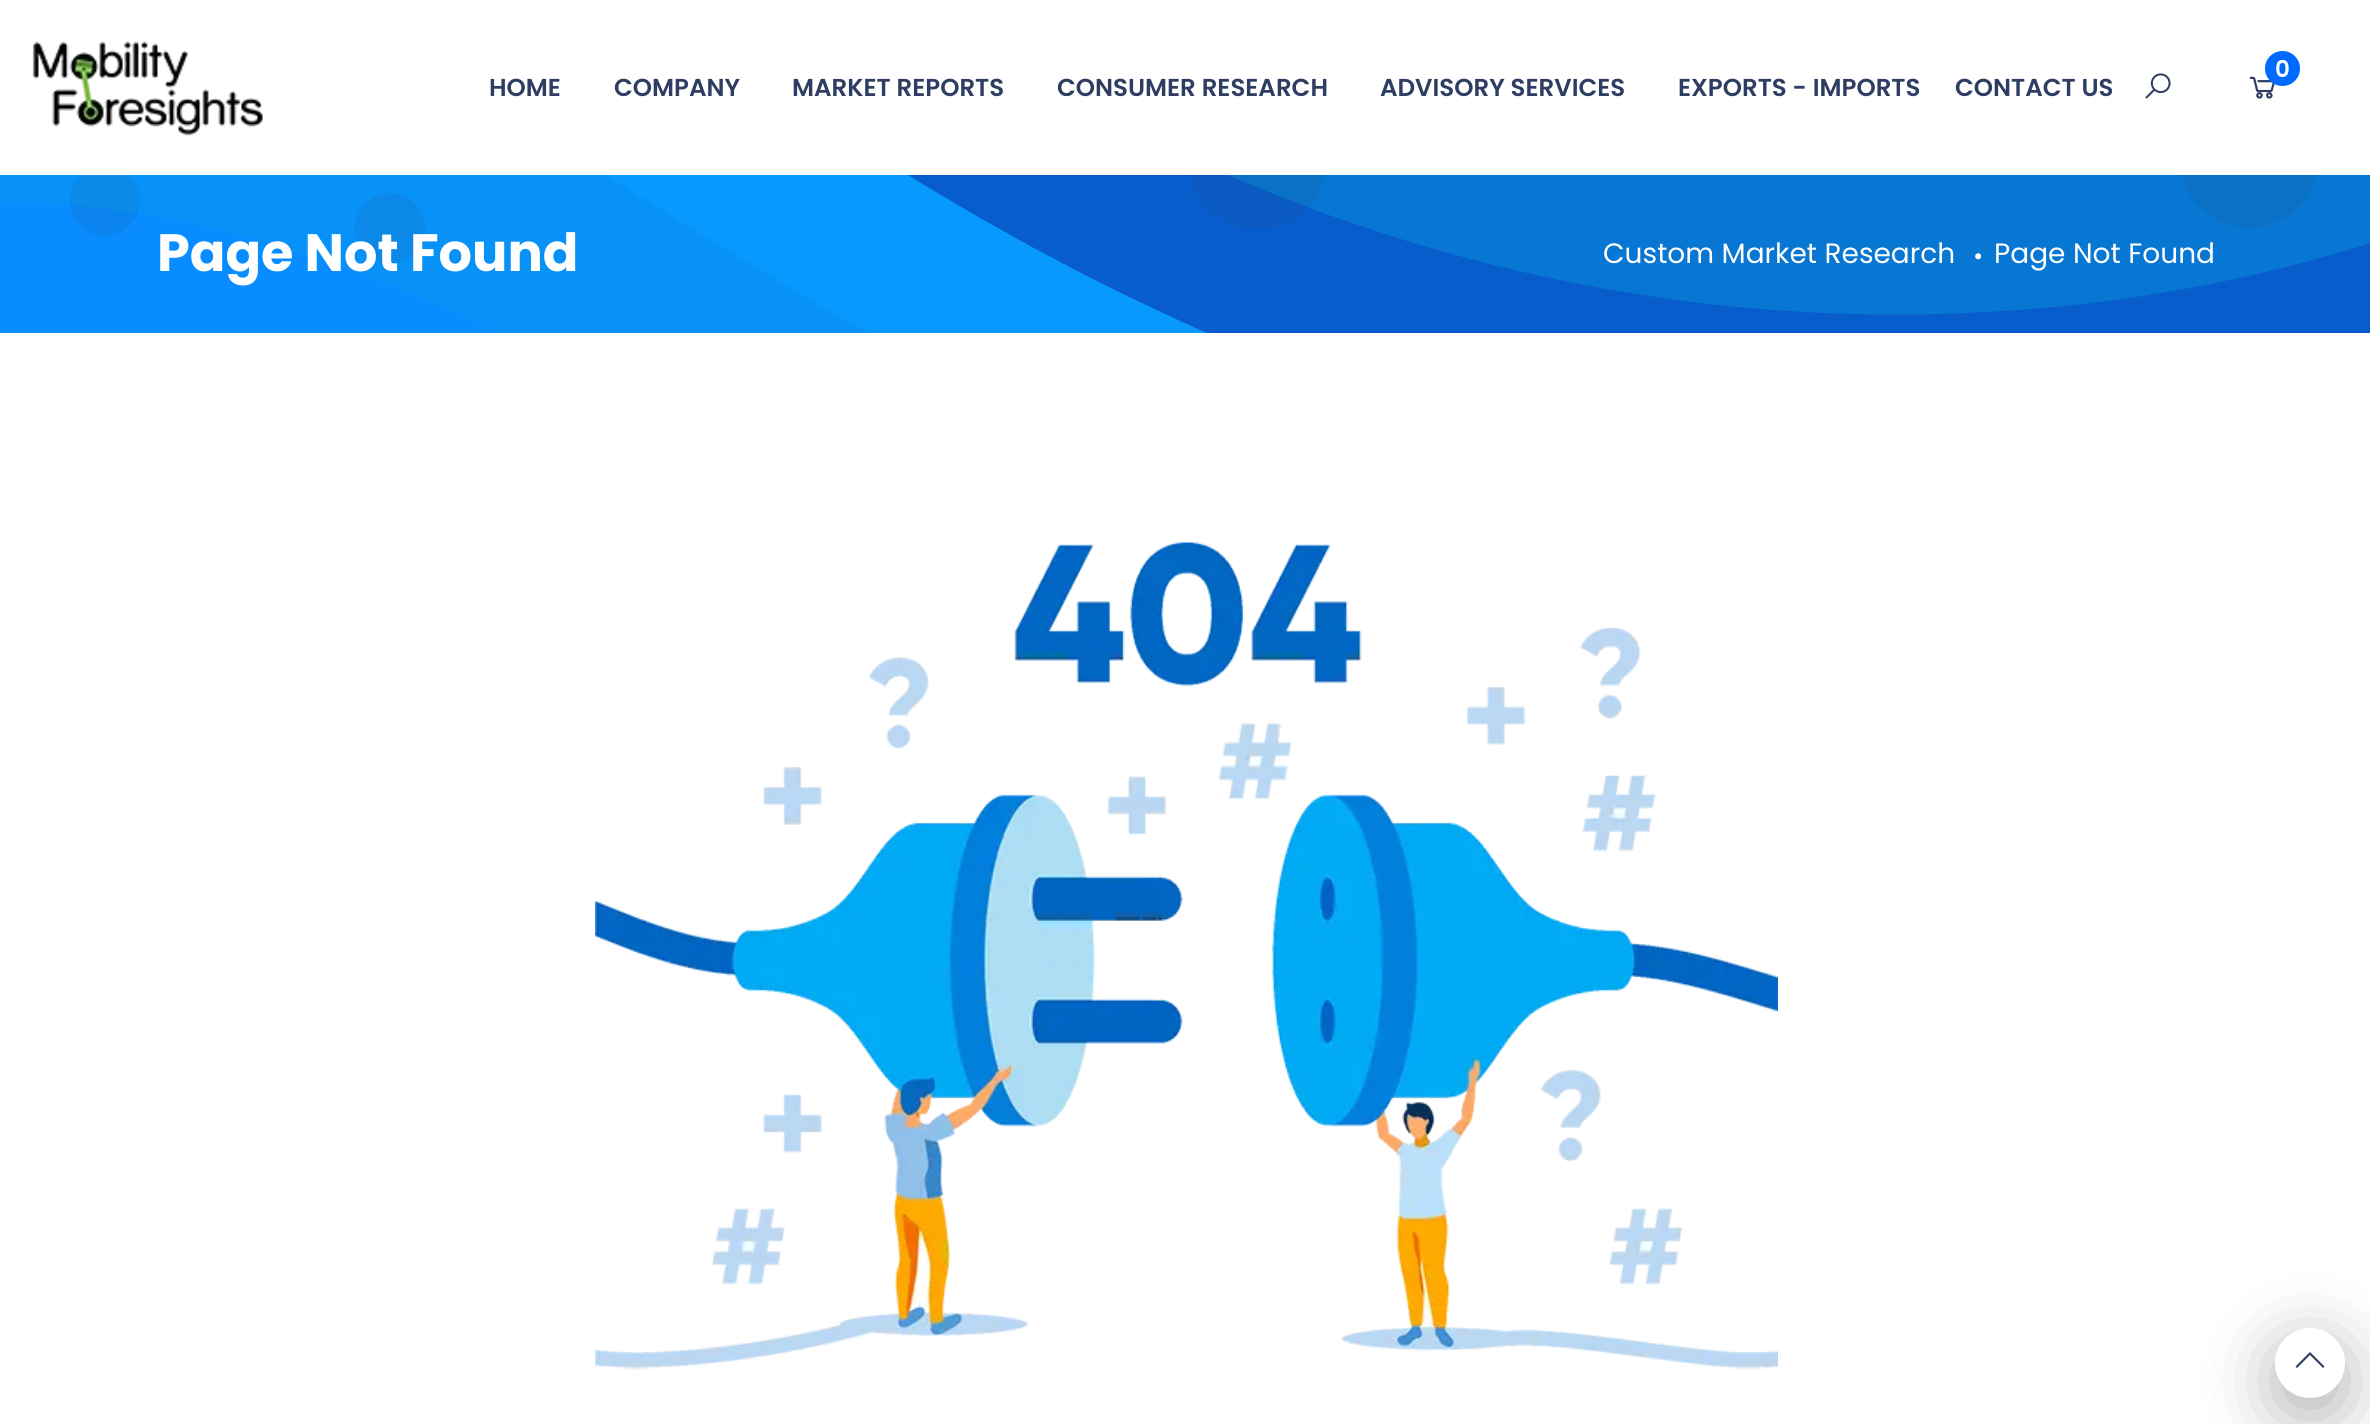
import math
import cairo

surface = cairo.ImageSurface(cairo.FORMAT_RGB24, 2370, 1424)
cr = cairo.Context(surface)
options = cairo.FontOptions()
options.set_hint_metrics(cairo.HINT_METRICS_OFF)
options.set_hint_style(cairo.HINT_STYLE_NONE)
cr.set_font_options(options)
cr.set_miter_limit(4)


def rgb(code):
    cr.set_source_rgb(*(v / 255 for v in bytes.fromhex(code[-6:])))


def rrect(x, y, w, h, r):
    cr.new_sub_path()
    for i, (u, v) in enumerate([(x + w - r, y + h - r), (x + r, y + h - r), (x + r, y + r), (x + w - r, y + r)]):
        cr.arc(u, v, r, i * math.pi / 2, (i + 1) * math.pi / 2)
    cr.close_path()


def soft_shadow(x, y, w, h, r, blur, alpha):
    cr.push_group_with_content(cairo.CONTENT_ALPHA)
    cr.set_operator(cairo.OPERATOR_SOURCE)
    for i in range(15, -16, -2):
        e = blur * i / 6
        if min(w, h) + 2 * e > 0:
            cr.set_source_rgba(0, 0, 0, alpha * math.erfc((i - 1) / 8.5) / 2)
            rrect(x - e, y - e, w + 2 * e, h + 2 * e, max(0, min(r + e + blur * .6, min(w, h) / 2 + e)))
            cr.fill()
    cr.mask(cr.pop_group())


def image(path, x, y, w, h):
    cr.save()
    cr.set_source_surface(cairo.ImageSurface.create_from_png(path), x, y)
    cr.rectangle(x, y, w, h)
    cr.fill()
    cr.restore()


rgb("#ffffff")
cr.paint()
image("img/4.png", 0, 175, 2370, 158)
cr.set_source_rgba(0.18, 0.239, 0.384, 0.1)
cr.arc(105, 201, 35, 0, 2 * math.pi)
cr.fill()
cr.arc(1257, 159, 70, 0, 2 * math.pi)
cr.fill()
cr.arc(2249, 158, 70, 0, 2 * math.pi)
cr.fill()
rgb("#ffffff")
cr.rectangle(82, 88, 2237, 87)
cr.fill()
image("img/1.png", 32, 41, 231, 95)
image("img/2.png", 2249, 76, 26, 23)
rgb("#0069ff")
cr.arc(2282.5, 68.5, 17.5, 0, 2 * math.pi)
cr.fill()
image("img/3.png", 2145, 73, 26, 26)
rgb("#0c89e8")
cr.arc(390, 228, 35, 0, 2 * math.pi)
cr.fill()
image("img/5.png", 595, 542, 1183, 828)
rgb("#000000")
soft_shadow(2275, 1346, 70, 70, 35, 35, 0.3)
rgb("#ffffff")
cr.arc(2310, 1363, 35, 0, 2 * math.pi)
cr.fill()
rgb("#2e3d62")
cr.new_path()
cr.move_to(2310, 1352)
cr.line_to(2295.5, 1366.5)
cr.line_to(2297, 1368)
cr.line_to(2310, 1355)
cr.line_to(2323, 1368)
cr.line_to(2324.5, 1366.5)
cr.close_path()
cr.fill()
cr.select_font_face("Poppins SemiBold")
cr.set_font_size(23)
rgb("#ffffff")
cr.move_to(2275, 77)
cr.show_text("0")
cr.set_font_size(24.5)
rgb("#2e3d62")
for x, y, s in [
    (489, 96, "HOME"),
    (614, 96, "COMPANY"),
    (792, 96, "MARKET REPORTS"),
    (1057, 96, "CONSUMER RESEARCH"),
    (1380, 96, "ADVISORY SERVICES"),
    (1678, 96, "EXPORTS - IMPORTS"),
    (1955, 96, "CONTACT US"),
]:
    cr.move_to(x, y)
    cr.show_text(s)
cr.select_font_face("Poppins", cairo.FONT_SLANT_NORMAL, cairo.FONT_WEIGHT_BOLD)
cr.set_font_size(52.5)
rgb("#ffffff")
cr.move_to(157, 271)
cr.show_text("Page Not Found")
cr.select_font_face("Poppins")
cr.set_font_size(28)
cr.move_to(1603, 263)
cr.show_text("Custom Market Research")
cr.set_font_size(49)
cr.move_to(1973, 259)
cr.show_text(".")
cr.set_font_size(28)
cr.move_to(1994, 263)
cr.show_text("Page Not Found")
surface.write_to_png("page.png")
